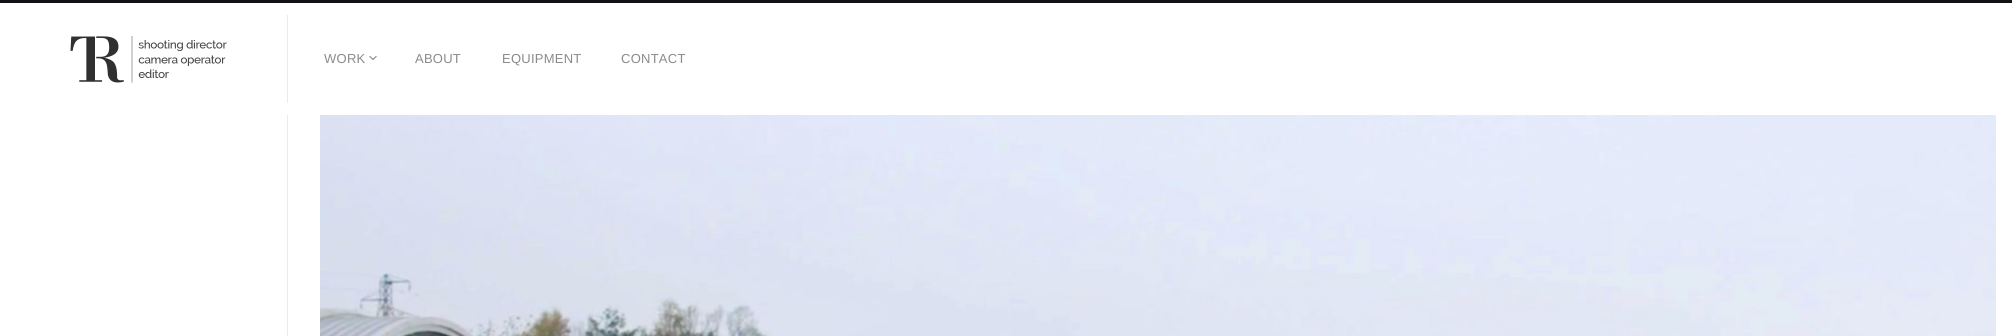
import math
import cairo

surface = cairo.ImageSurface(cairo.FORMAT_RGB24, 2012, 336)
cr = cairo.Context(surface)
options = cairo.FontOptions()
options.set_hint_metrics(cairo.HINT_METRICS_OFF)
options.set_hint_style(cairo.HINT_STYLE_NONE)
cr.set_font_options(options)
cr.set_miter_limit(4)


def rgb(code):
    cr.set_source_rgb(*(v / 255 for v in bytes.fromhex(code[-6:])))


def tracked(x, y, s, letter, word):
    cr.move_to(x, y)
    for ch in s:
        cr.show_text(ch)
        cr.rel_move_to(letter + word * (ch == ' '), 0)


def image(path, x, y, w, h):
    cr.save()
    cr.set_source_surface(cairo.ImageSurface.create_from_png(path), x, y)
    cr.rectangle(x, y, w, h)
    cr.fill()
    cr.restore()


rgb("#ffffff")
cr.paint()
rgb("#111116")
cr.rectangle(0, 0, 2012, 3)
cr.fill()
rgb("#ebebeb")
cr.rectangle(287, 15, 1, 88)
cr.fill()
image("img/1.png", 70, 36, 157, 47)
image("img/2.png", 369, 56, 8, 4)
cr.rectangle(287, 115, 1, 221)
cr.fill()
image("img/3.png", 320, 115, 1676, 221)
cr.select_font_face("Liberation Sans")
cr.set_font_size(13)
rgb("#8a8a8a")
for x, y, s in [
    (324, 63, "WORK"),
    (415, 63, "ABOUT"),
    (502, 63, "EQUIPMENT"),
    (621, 63, "CONTACT"),
]:
    tracked(x, y, s, 0.25, 0)
surface.write_to_png("page.png")
